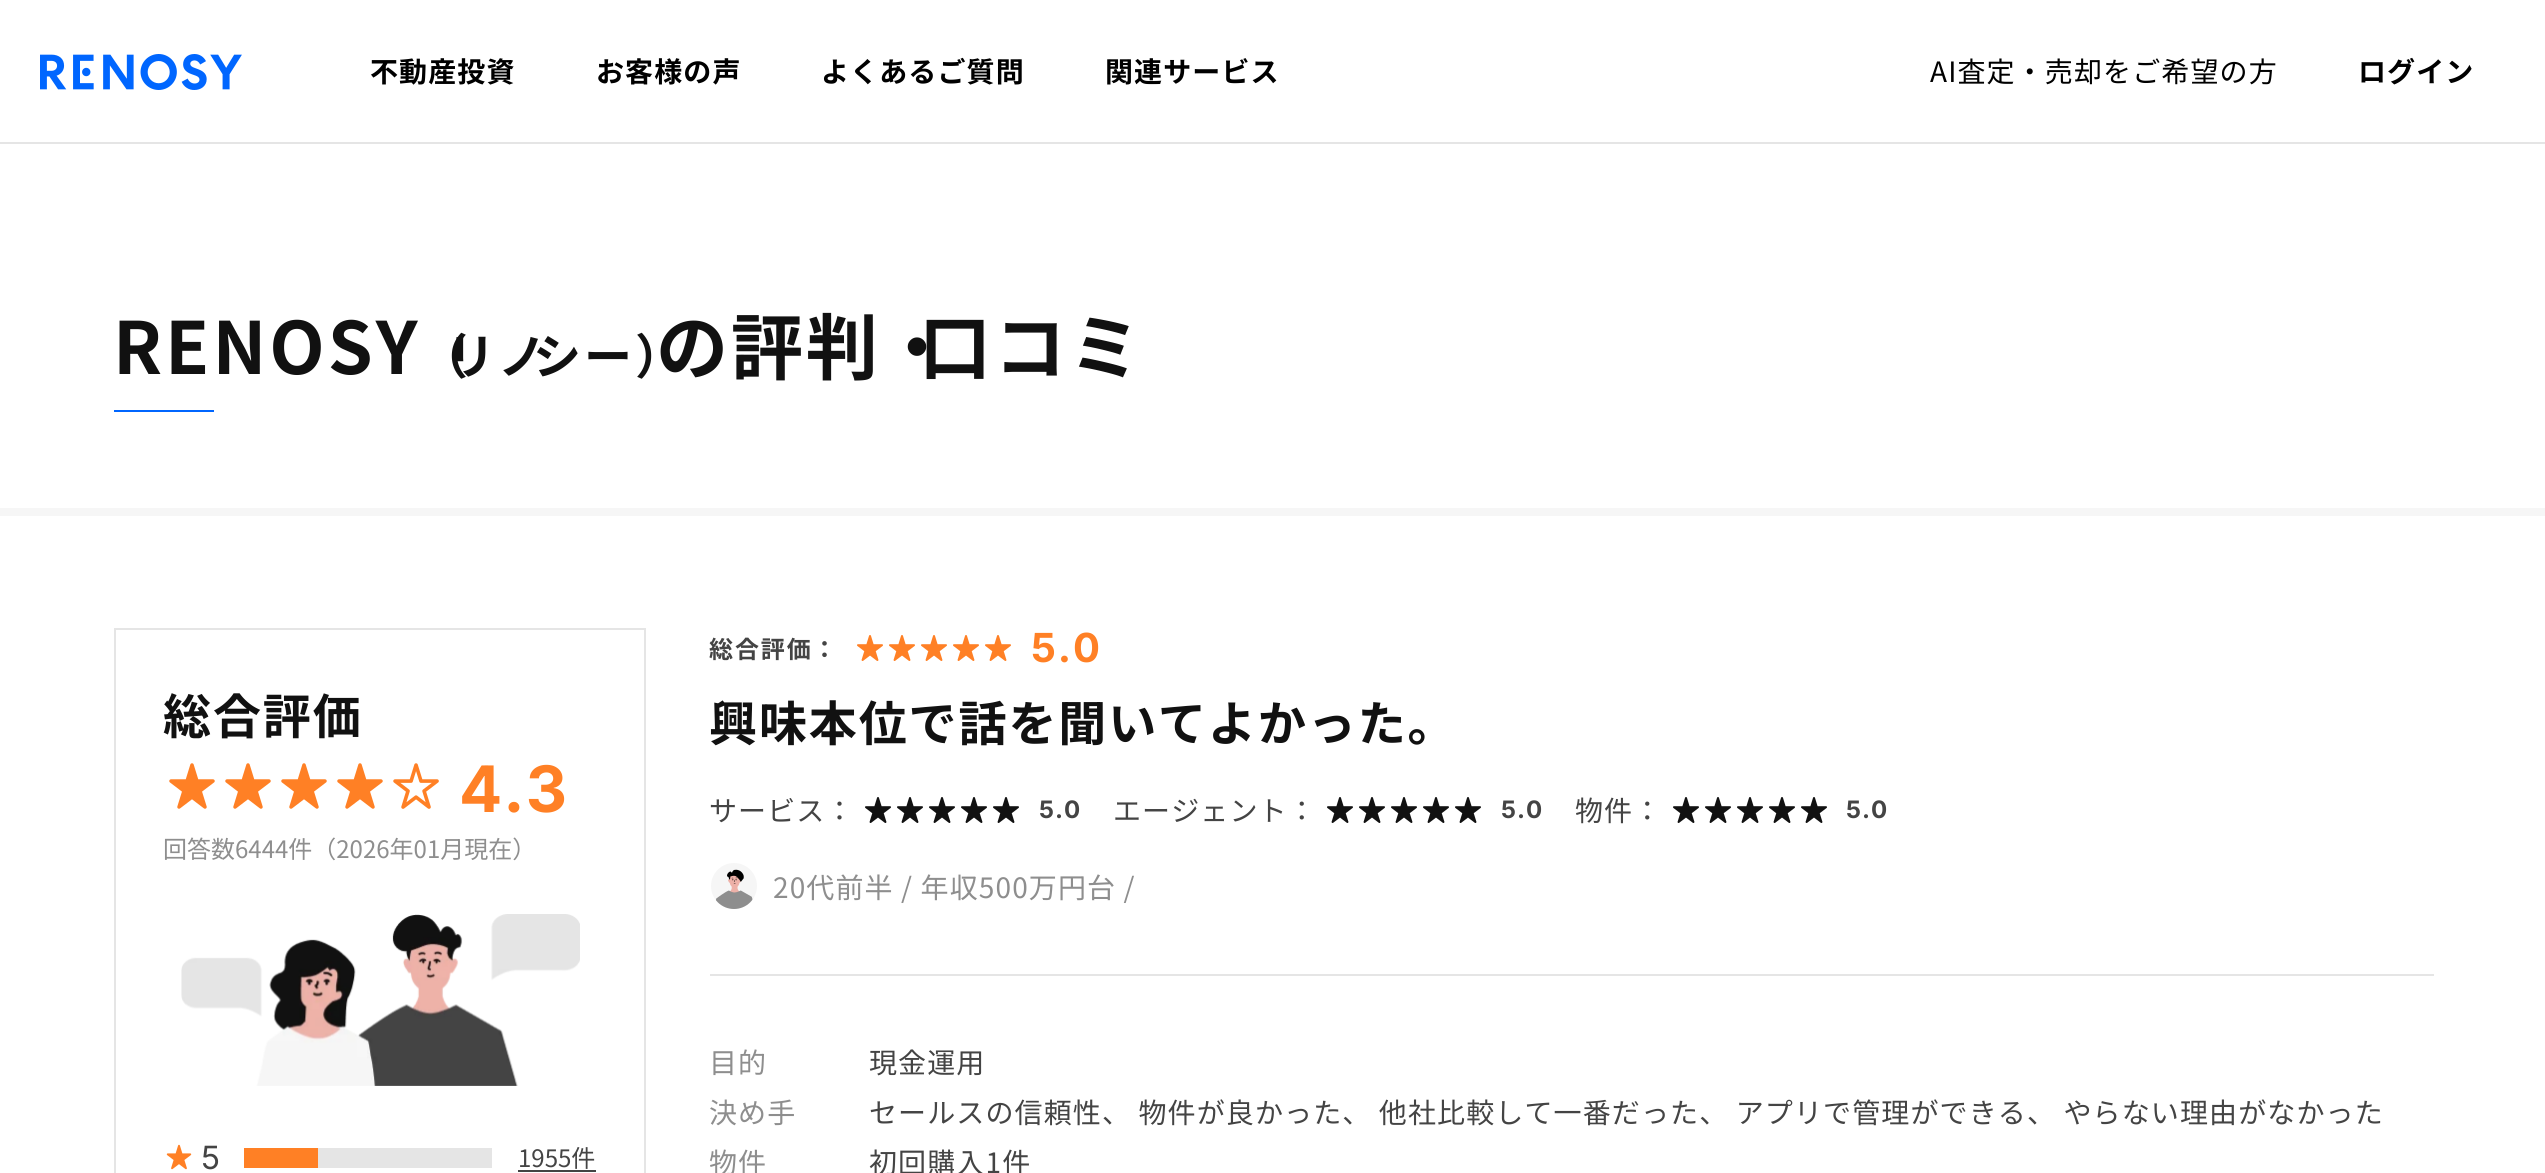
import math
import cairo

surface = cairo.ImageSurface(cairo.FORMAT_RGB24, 2545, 1173)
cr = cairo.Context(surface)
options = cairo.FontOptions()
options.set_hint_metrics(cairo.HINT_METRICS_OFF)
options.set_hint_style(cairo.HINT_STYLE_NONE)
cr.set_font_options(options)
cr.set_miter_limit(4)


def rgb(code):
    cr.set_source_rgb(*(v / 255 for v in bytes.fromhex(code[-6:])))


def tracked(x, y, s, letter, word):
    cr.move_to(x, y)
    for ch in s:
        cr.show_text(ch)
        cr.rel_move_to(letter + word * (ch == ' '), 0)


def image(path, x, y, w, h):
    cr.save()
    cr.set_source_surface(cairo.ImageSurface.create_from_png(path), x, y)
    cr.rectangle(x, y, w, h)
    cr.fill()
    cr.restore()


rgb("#f6f6f6")
cr.paint()
rgb("#ffffff")
cr.rectangle(0, 0, 2545, 142)
cr.fill()
rgb("#e5e5e5")
cr.rectangle(0, 142, 2545, 2)
cr.fill()
image("img/1.png", 40, 54, 202, 36)
for x, y, w, h, color in [
    (0, 144, 2545, 364, "#ffffff"),
    (114, 410, 100, 2, "#0066ff"),
    (0, 516, 2545, 657, "#ffffff"),
]:
    rgb(color)
    cr.rectangle(x, y, w, h)
    cr.fill()
cr.rectangle(115, 629, 530, 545)
rgb("#e5e5e5")
cr.stroke()
image("img/2.png", 169, 763, 270, 46)
image("img/3.png", 181, 914, 399, 172)
image("img/4.png", 166, 1144, 26, 26)
for x, y, w, h, color in [
    (318, 1148, 174, 20, "#e5e5e5"),
    (244, 1148, 74, 20, "#ff8025"),
    (518, 1170, 78, 2, "#444444"),
]:
    rgb(color)
    cr.rectangle(x, y, w, h)
    cr.fill()
image("img/5.png", 857, 635, 154, 26)
image("img/6.png", 865, 797, 154, 26)
image("img/6.png", 1327, 797, 154, 26)
image("img/6.png", 1673, 797, 154, 26)
image("img/7.png", 711, 863, 46, 46)
rgb("#e5e5e5")
cr.rectangle(710, 974, 1724, 2)
cr.fill()
cr.select_font_face("Noto Sans JP", cairo.FONT_SLANT_NORMAL, cairo.FONT_WEIGHT_BOLD)
cr.set_font_size(28)
rgb("#000000")
for x, y, s in [
    (370, 82, "不動産投資"),
    (596, 82, "お客様の声"),
    (821, 82, "よくあるご質問"),
    (1105, 82, "関連サービス"),
]:
    tracked(x, y, s, 1.12, 0)
cr.select_font_face("Noto Sans JP")
tracked(1930, 82, "AI査定・売却をご希望の方", 1.12, 0)
cr.select_font_face("Noto Sans JP", cairo.FONT_SLANT_NORMAL, cairo.FONT_WEIGHT_BOLD)
tracked(2358, 82, "ログイン", 1.12, 0)
cr.set_font_size(72)
rgb("#111111")
tracked(113, 374, "RENOSY", 3, 0)
cr.set_font_size(48)
tracked(420, 374, "（", 3, 0)
tracked(447, 374, "リノ", 3, 0)
tracked(533, 374, "シー）", 3, 0)
cr.set_font_size(72)
tracked(656, 374, "の評判・", 3, 0)
tracked(919, 374, "口コミ", 3, 0)
cr.set_font_size(48)
tracked(163, 734, "総合評価", 1.9, 0)
cr.select_font_face("Inter", cairo.FONT_SLANT_NORMAL, cairo.FONT_WEIGHT_BOLD)
cr.set_font_size(64)
rgb("#ff8025")
tracked(459, 812, "4.3", 1, 0)
cr.select_font_face("Noto Sans JP")
cr.set_font_size(24)
rgb("#8e8e8e")
cr.move_to(163, 858)
cr.show_text("回答数6444件（2026年01月現在）")
cr.select_font_face("Inter")
cr.set_font_size(32)
rgb("#444444")
cr.move_to(201, 1169)
cr.show_text("5")
cr.select_font_face("Noto Sans JP")
cr.set_font_size(24)
cr.move_to(518, 1167)
cr.show_text("1955件")
cr.select_font_face("Noto Sans JP", cairo.FONT_SLANT_NORMAL, cairo.FONT_WEIGHT_BOLD)
tracked(709, 658, "総合評価：", 1.9, 0)
cr.select_font_face("Inter", cairo.FONT_SLANT_NORMAL, cairo.FONT_WEIGHT_BOLD)
cr.set_font_size(40)
rgb("#ff8025")
tracked(1031, 662, "5.0", 1.9, 0)
cr.select_font_face("Noto Sans JP", cairo.FONT_SLANT_NORMAL, cairo.FONT_WEIGHT_BOLD)
cr.set_font_size(48)
rgb("#111111")
tracked(709, 741, "興味本位で話を聞いてよかった。", 1.9, 0)
cr.select_font_face("Noto Sans JP")
cr.set_font_size(28)
rgb("#444444")
tracked(709, 821, "サービス：", 1.12, 0)
cr.select_font_face("Inter", cairo.FONT_SLANT_NORMAL, cairo.FONT_WEIGHT_BOLD)
cr.set_font_size(24)
tracked(1039, 818, "5.0", 1, 0)
cr.select_font_face("Noto Sans JP")
cr.set_font_size(28)
tracked(1113, 821, "エージェント：", 1.12, 0)
cr.select_font_face("Inter", cairo.FONT_SLANT_NORMAL, cairo.FONT_WEIGHT_BOLD)
cr.set_font_size(24)
tracked(1501, 818, "5.0", 1, 0)
cr.select_font_face("Noto Sans JP")
cr.set_font_size(28)
tracked(1575, 821, "物件：", 1.12, 0)
cr.select_font_face("Inter", cairo.FONT_SLANT_NORMAL, cairo.FONT_WEIGHT_BOLD)
cr.set_font_size(24)
tracked(1846, 818, "5.0", 1, 0)
cr.select_font_face("Noto Sans JP")
cr.set_font_size(28)
rgb("#8e8e8e")
tracked(773, 898, "20代前半 / 年収500万円台 /", 1.12, 0)
tracked(709, 1073, "目的", 1.12, 0)
rgb("#444444")
tracked(869, 1073, "現金運用", 1.12, 0)
rgb("#8e8e8e")
tracked(709, 1123, "決め手", 1.12, 0)
rgb("#444444")
tracked(869, 1123, "セールスの信頼性、 物件が良かった、 他社比較して一番だった、 アプリで管理ができる、 やらない理由がなかった", 1.12, 0)
rgb("#8e8e8e")
tracked(709, 1173, "物件", 1.12, 0)
rgb("#444444")
tracked(869, 1173, "初回購入1件", 1.12, 0)
surface.write_to_png("page.png")
